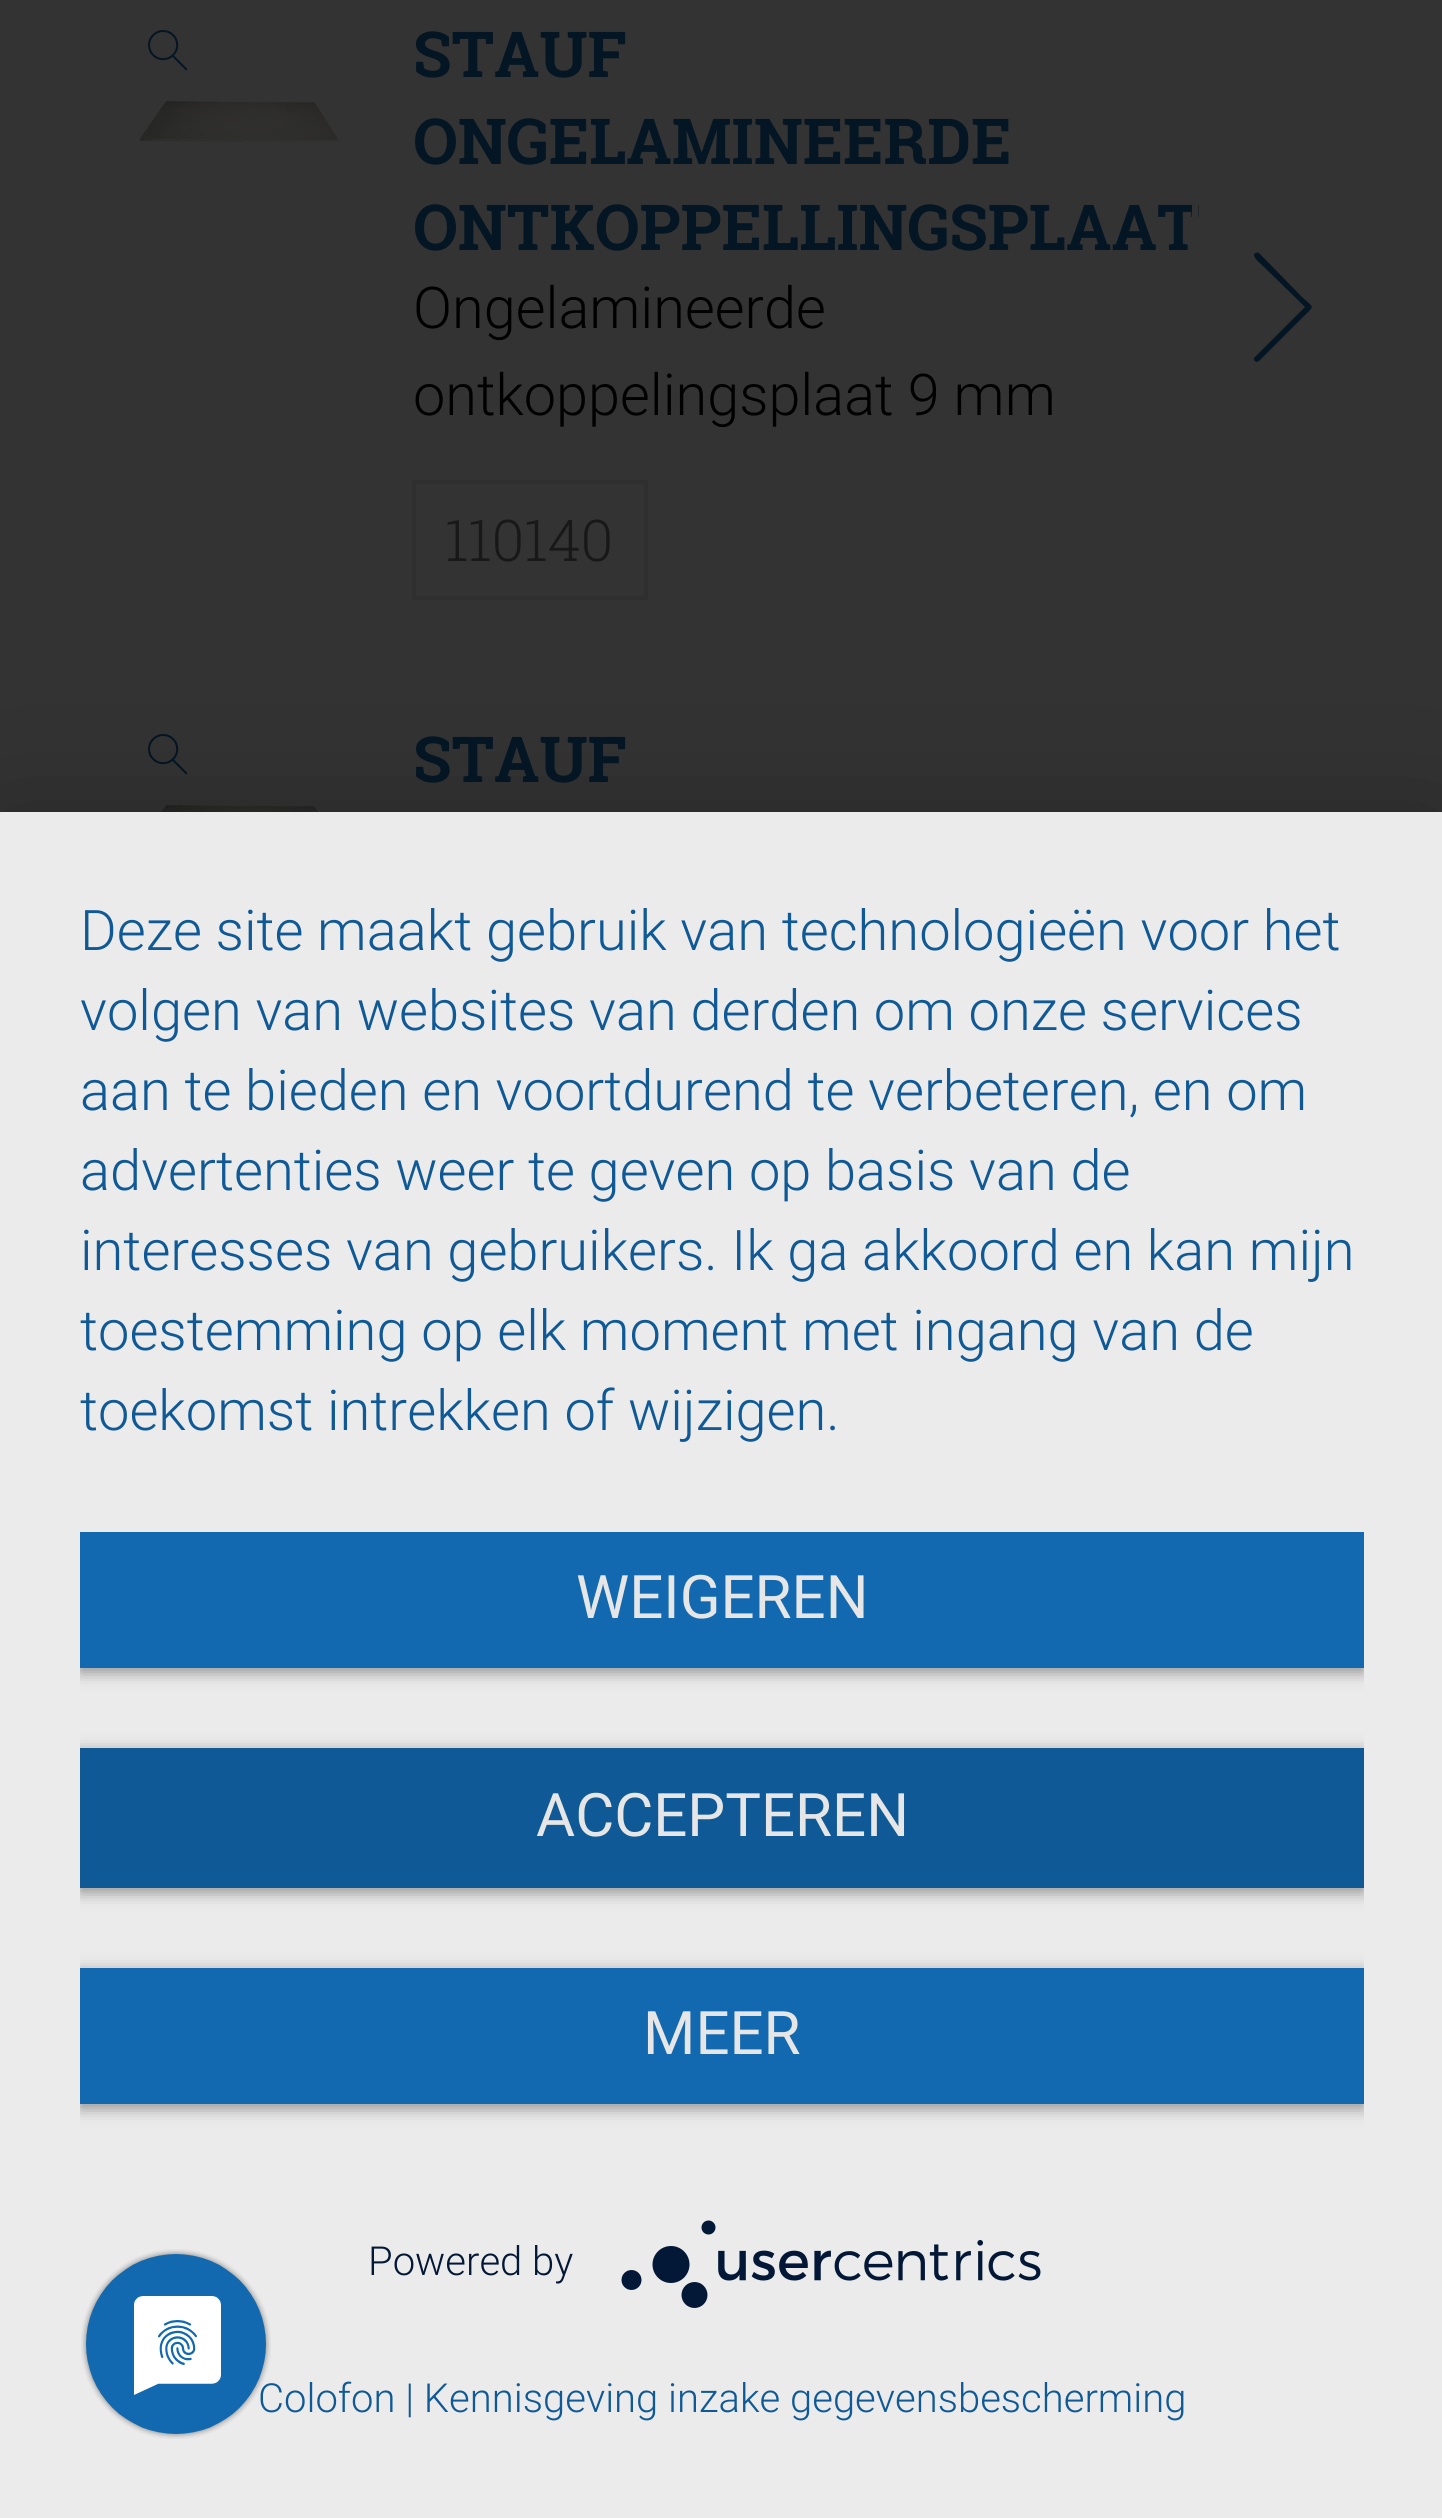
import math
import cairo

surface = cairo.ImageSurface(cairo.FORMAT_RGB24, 1442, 2518)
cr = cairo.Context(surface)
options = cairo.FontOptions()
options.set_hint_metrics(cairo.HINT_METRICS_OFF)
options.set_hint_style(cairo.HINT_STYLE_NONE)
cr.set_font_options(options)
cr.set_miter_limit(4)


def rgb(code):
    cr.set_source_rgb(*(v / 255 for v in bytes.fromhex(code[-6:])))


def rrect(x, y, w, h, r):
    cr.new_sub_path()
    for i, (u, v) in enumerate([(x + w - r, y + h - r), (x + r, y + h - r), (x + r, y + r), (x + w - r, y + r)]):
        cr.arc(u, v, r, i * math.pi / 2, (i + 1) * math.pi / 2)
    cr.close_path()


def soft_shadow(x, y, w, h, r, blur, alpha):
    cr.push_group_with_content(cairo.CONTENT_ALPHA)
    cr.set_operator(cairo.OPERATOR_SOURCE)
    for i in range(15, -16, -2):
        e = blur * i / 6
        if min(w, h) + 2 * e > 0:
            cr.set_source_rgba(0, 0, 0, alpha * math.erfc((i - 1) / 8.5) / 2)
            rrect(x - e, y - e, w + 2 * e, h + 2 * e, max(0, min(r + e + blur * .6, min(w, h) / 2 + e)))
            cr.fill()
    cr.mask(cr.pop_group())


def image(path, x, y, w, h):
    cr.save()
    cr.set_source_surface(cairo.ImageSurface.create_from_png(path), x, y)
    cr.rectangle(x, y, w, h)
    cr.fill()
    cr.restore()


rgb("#333333")
cr.paint()
image("img/1.png", 148, 30, 40, 41)
image("img/2.png", 139, 101, 200, 41)
cr.rectangle(414, 482, 232, 116)
rgb("#2f2f2f")
cr.set_line_width(4)
cr.stroke()
rgb("#041523")
cr.new_path()
cr.move_to(1257, 362)
cr.curve_to(1255, 362, 1253, 359, 1254, 358)
cr.line_to(1305, 307)
cr.line_to(1263, 266)
cr.curve_to(1261, 264, 1253, 258, 1254, 254)
cr.curve_to(1255, 253, 1257, 252, 1259, 253)
cr.line_to(1302, 297)
cr.curve_to(1315, 309, 1315, 305, 1302, 318)
cr.line_to(1259, 361)
cr.close_path()
cr.fill()
image("img/1.png", 148, 734, 40, 41)
image("img/3.png", 161, 805, 158, 7)
rgb("#000000")
soft_shadow(0, 836, 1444, 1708, 0, 72, 0.3)
rgb("#ebebeb")
cr.rectangle(0, 812, 1442, 1706)
cr.fill()
cr.save()
cr.rectangle(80, 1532, 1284, 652)
cr.clip()
rgb("#000000")
soft_shadow(80, 1536, 1284, 136, 0, 8, 0.4)
cr.restore()
rgb("#1269b0")
cr.rectangle(80, 1532, 1284, 136)
cr.fill()
cr.save()
cr.rectangle(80, 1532, 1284, 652)
cr.clip()
rgb("#000000")
soft_shadow(80, 1752, 1284, 140, 0, 8, 0.4)
cr.restore()
rgb("#0f5996")
cr.rectangle(80, 1748, 1284, 140)
cr.fill()
cr.save()
cr.rectangle(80, 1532, 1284, 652)
cr.clip()
rgb("#000000")
soft_shadow(80, 1972, 1284, 136, 0, 8, 0.4)
cr.restore()
rgb("#1269b0")
cr.rectangle(80, 1968, 1284, 136)
cr.fill()
image("img/4.png", 621, 2220, 420, 88)
cr.select_font_face("Roboto Slab", cairo.FONT_SLANT_NORMAL, cairo.FONT_WEIGHT_BOLD)
cr.set_font_size(63.4)
rgb("#041523")
for x, y, s in [
    (413, 77, "STAUF"),
    (413, 164, "ONGELAMINEERDE"),
    (413, 250, "ONTKOPPELLINGSPLAAT"),
]:
    cr.move_to(x, y)
    cr.show_text(s)
cr.select_font_face("Roboto Light")
cr.set_font_size(57.6)
rgb("#000000")
cr.move_to(413, 328)
cr.show_text("Ongelamineerde")
cr.move_to(413, 415)
cr.show_text("ontkoppelingsplaat 9 mm")
cr.select_font_face("Roboto Slab Light")
rgb("#181818")
cr.move_to(445, 561)
cr.show_text("110140")
rgb("#333333")
cr.rectangle(1192, 204, 6, 13)
cr.fill()
cr.select_font_face("Roboto Slab", cairo.FONT_SLANT_NORMAL, cairo.FONT_WEIGHT_BOLD)
cr.set_font_size(63.4)
rgb("#041523")
cr.move_to(413, 782)
cr.show_text("STAUF")
cr.select_font_face("Roboto Light")
cr.set_font_size(56)
rgb("#0f5996")
for x, y, s in [
    (80, 950, "Deze site maakt gebruik van technologieën voor het"),
    (80, 1030, "volgen van websites van derden om onze services"),
    (80, 1110, "aan te bieden en voortdurend te verbeteren, en om"),
    (80, 1190, "advertenties weer te geven op basis van de"),
    (80, 1270, "interesses van gebruikers. Ik ga akkoord en kan mijn"),
    (80, 1350, "toestemming op elk moment met ingang van de"),
    (80, 1430, "toekomst intrekken of wijzigen."),
]:
    cr.move_to(x, y)
    cr.show_text(s)
cr.select_font_face("Roboto")
cr.set_font_size(60)
rgb("#e6e6e6")
for x, y, s in [
    (576, 1618, "WEIGEREN"),
    (536, 1836, "ACCEPTEREN"),
    (643, 2054, "MEER"),
]:
    cr.move_to(x, y)
    cr.show_text(s)
cr.select_font_face("Roboto Light")
cr.set_font_size(40)
rgb("#021836")
cr.move_to(368, 2275)
cr.show_text("Powered by")
rgb("#0f5996")
cr.move_to(258, 2412)
cr.show_text("Colofon | Kennisgeving inzake gegevensbescherming")
image("img/5.png", 81, 2249, 190, 190)
surface.write_to_png("page.png")
